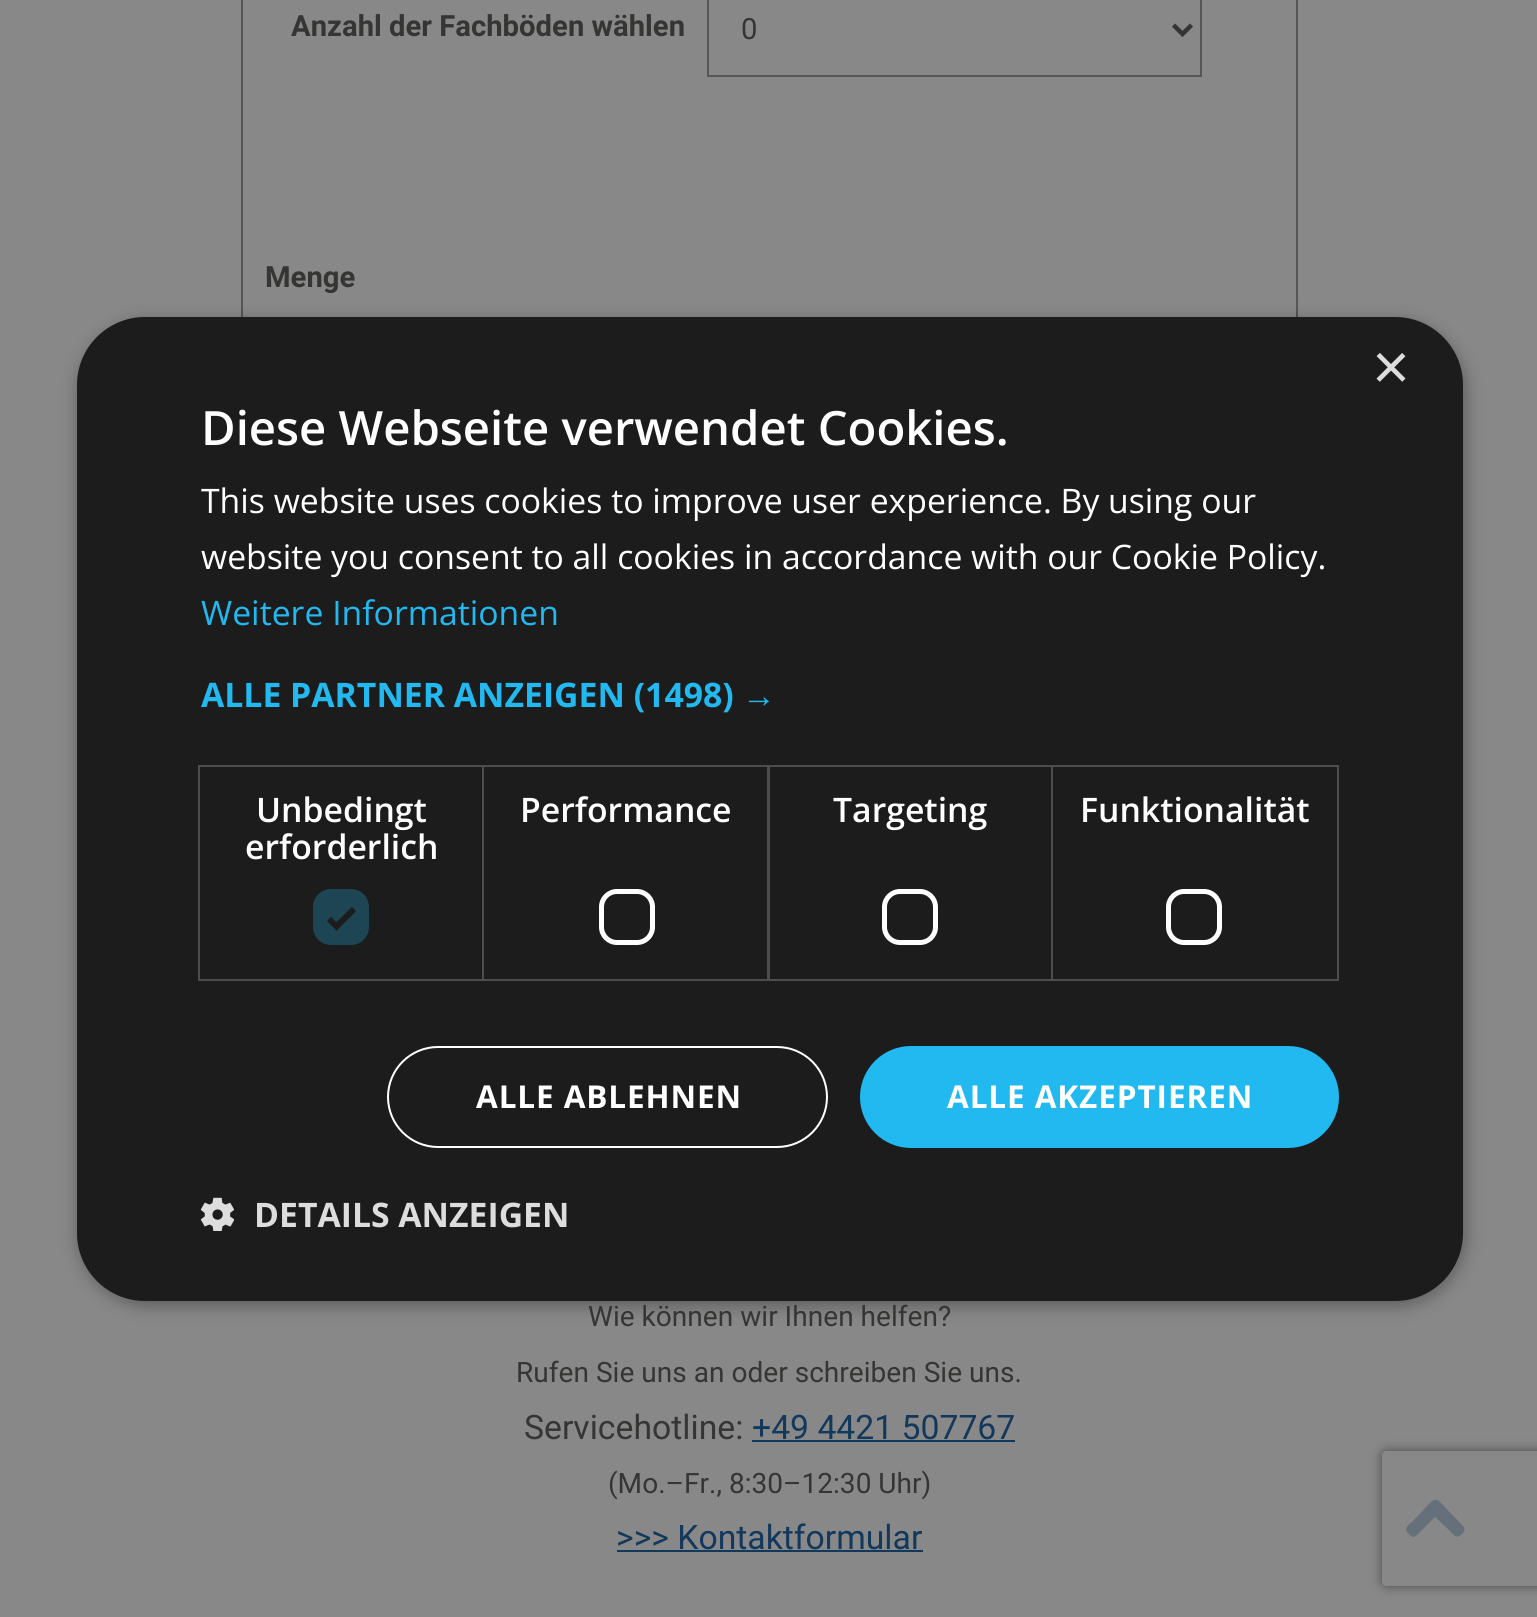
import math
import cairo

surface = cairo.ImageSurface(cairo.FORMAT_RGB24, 1537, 1617)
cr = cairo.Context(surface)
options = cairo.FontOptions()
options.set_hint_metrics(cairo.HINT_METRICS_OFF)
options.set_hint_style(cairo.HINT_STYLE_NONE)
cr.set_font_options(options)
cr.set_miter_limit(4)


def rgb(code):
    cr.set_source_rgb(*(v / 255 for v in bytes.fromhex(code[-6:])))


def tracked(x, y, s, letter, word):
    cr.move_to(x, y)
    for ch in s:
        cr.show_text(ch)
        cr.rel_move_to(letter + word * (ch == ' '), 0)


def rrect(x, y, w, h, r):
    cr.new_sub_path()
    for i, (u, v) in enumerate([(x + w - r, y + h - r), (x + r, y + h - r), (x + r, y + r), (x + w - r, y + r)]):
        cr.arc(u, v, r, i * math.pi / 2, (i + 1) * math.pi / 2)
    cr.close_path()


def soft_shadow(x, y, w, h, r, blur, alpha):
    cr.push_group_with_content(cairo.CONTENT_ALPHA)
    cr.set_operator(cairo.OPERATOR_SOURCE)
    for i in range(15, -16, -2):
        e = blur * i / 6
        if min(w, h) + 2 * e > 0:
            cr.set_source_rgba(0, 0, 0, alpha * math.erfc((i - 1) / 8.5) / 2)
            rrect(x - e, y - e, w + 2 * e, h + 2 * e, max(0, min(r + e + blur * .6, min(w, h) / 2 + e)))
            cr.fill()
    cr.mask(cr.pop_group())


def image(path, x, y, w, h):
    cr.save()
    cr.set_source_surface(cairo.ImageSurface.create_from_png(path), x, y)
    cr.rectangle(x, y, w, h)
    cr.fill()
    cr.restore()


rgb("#888888")
cr.paint()
cr.rectangle(242, -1, 1055, 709)
rgb("#575656")
cr.stroke()
cr.rectangle(708, -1, 493, 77)
cr.stroke()
cr.new_path()
cr.move_to(1173.5, 25)
cr.line_to(1182.5, 34)
cr.line_to(1191.5, 25)
rgb("#353534")
cr.set_line_width(4.5)
cr.stroke()
rgb("#12385c")
cr.rectangle(752, 1440, 263, 2)
cr.fill()
cr.rectangle(617, 1550, 306, 2)
cr.fill()
rgb("#000000")
soft_shadow(79, 322, 1386, 983, 68, 9, 0.35)
rgb("#1c1c1c")
rrect(77, 317, 1386, 984, 68)
cr.fill()
cr.rectangle(199, 766, 284, 214)
rgb("#4d4d4d")
cr.set_line_width(2)
cr.stroke()
rgb("#1e4553")
rrect(313, 889, 56, 56, 18)
cr.fill()
cr.new_path()
cr.move_to(329, 919)
cr.line_to(336.5, 926.5)
cr.line_to(354, 909)
rgb("#1c1c1c")
cr.set_line_width(5.9)
cr.stroke()
cr.rectangle(483, 766, 286, 214)
rgb("#4d4d4d")
cr.set_line_width(2)
cr.stroke()
rrect(601.5, 891.5, 51, 51, 15.5)
rgb("#ffffff")
cr.set_line_width(5)
cr.stroke()
cr.rectangle(768, 766, 284, 214)
rgb("#4d4d4d")
cr.set_line_width(2)
cr.stroke()
rrect(884.5, 891.5, 51, 51, 15.5)
rgb("#ffffff")
cr.set_line_width(5)
cr.stroke()
cr.rectangle(1052, 766, 286, 214)
rgb("#4d4d4d")
cr.set_line_width(2)
cr.stroke()
rrect(1168.5, 891.5, 51, 51, 15.5)
rgb("#ffffff")
cr.set_line_width(5)
cr.stroke()
rrect(388, 1047, 439, 100, 50)
cr.set_line_width(2)
cr.stroke()
rgb("#22b8f0")
rrect(860, 1046, 479, 102, 51)
cr.fill()
image("img/1.png", 200, 1197, 34, 34)
cr.save()
cr.set_fill_rule(cairo.FILL_RULE_EVEN_ODD)
cr.new_path()
cr.move_to(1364, 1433)
cr.line_to(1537, 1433)
cr.line_to(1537, 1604)
cr.line_to(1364, 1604)
cr.close_path()
cr.move_to(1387, 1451)
cr.line_to(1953, 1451)
cr.curve_to(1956, 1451, 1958, 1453, 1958, 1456)
cr.line_to(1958, 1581)
cr.curve_to(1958, 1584, 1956, 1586, 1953, 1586)
cr.line_to(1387, 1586)
cr.curve_to(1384, 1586, 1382, 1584, 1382, 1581)
cr.line_to(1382, 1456)
cr.curve_to(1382, 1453, 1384, 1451, 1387, 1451)
cr.close_path()
cr.clip()
rgb("#494949")
soft_shadow(1382, 1451, 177, 135, 5, 5.5, 1)
cr.restore()
rgb("#65707b")
cr.new_path()
cr.move_to(1463, 1526)
cr.curve_to(1465, 1528, 1465, 1531, 1463, 1533)
cr.curve_to(1456, 1540, 1455, 1536, 1448, 1529)
cr.line_to(1435, 1517)
cr.line_to(1423, 1529)
cr.curve_to(1416, 1536, 1414, 1541, 1407, 1532)
cr.curve_to(1404, 1528, 1409, 1524, 1412, 1522)
cr.line_to(1428, 1505)
cr.curve_to(1435, 1498, 1436, 1498, 1443, 1505)
cr.close_path()
cr.fill()
cr.select_font_face("Roboto", cairo.FONT_SLANT_NORMAL, cairo.FONT_WEIGHT_BOLD)
cr.set_font_size(29.25)
rgb("#353534")
cr.move_to(291, 36)
cr.show_text("Anzahl der Fachböden wählen")
cr.select_font_face("Roboto")
cr.move_to(741, 39)
cr.show_text("0")
cr.select_font_face("Roboto", cairo.FONT_SLANT_NORMAL, cairo.FONT_WEIGHT_BOLD)
cr.move_to(265, 287)
cr.show_text("Menge")
cr.select_font_face("Roboto")
cr.set_font_size(28.1)
cr.move_to(588, 1326)
cr.show_text("Wie können wir Ihnen helfen?")
cr.move_to(516, 1382)
cr.show_text("Rufen Sie uns an oder schreiben Sie uns.")
cr.set_font_size(33.75)
cr.move_to(524, 1439)
cr.show_text("Servicehotline:")
rgb("#12385c")
cr.move_to(752, 1439)
cr.show_text("+49 4421 507767")
cr.set_font_size(28.1)
rgb("#353534")
cr.move_to(608, 1493)
cr.show_text("(Mo.–Fr., 8:30–12:30 Uhr)")
cr.set_font_size(33.75)
rgb("#12385c")
cr.move_to(616, 1549)
cr.show_text(">>> Kontaktformular")
cr.select_font_face("Liberation Sans")
cr.set_font_size(65)
rgb("#dddddd")
cr.move_to(1372, 389)
cr.show_text("×")
cr.select_font_face("Open Sans SemiBold")
cr.set_font_size(47.25)
rgb("#ffffff")
cr.move_to(201, 445)
cr.show_text("Diese Webseite verwendet Cookies.")
cr.select_font_face("Open Sans")
cr.set_font_size(33.75)
cr.move_to(201, 513)
cr.show_text("This website uses cookies to improve user experience. By using our")
cr.move_to(201, 569)
cr.show_text("website you consent to all cookies in accordance with our Cookie Policy.")
rgb("#22b8f0")
cr.move_to(201, 625)
cr.show_text("Weitere Informationen")
cr.select_font_face("Open Sans", cairo.FONT_SLANT_NORMAL, cairo.FONT_WEIGHT_BOLD)
cr.move_to(201, 707)
cr.show_text("ALLE PARTNER ANZEIGEN (1498)")
cr.select_font_face("Liberation Sans", cairo.FONT_SLANT_NORMAL, cairo.FONT_WEIGHT_BOLD)
cr.move_to(742, 707)
cr.show_text("→")
cr.select_font_face("Open Sans SemiBold")
rgb("#ffffff")
for x, y, s in [
    (256, 822, "Unbedingt"),
    (245, 859, "erforderlich"),
    (520, 822, "Performance"),
    (833, 822, "Targeting"),
    (1080, 822, "Funktionalität"),
]:
    cr.move_to(x, y)
    cr.show_text(s)
cr.select_font_face("Open Sans", cairo.FONT_SLANT_NORMAL, cairo.FONT_WEIGHT_BOLD)
cr.set_font_size(31.5)
tracked(476, 1108, "ALLE ABLEHNEN", 0.9, 0)
tracked(947, 1108, "ALLE AKZEPTIEREN", 0.9, 0)
cr.set_font_size(33.75)
rgb("#dddddd")
cr.move_to(254, 1227)
cr.show_text("DETAILS ANZEIGEN")
surface.write_to_png("page.png")
